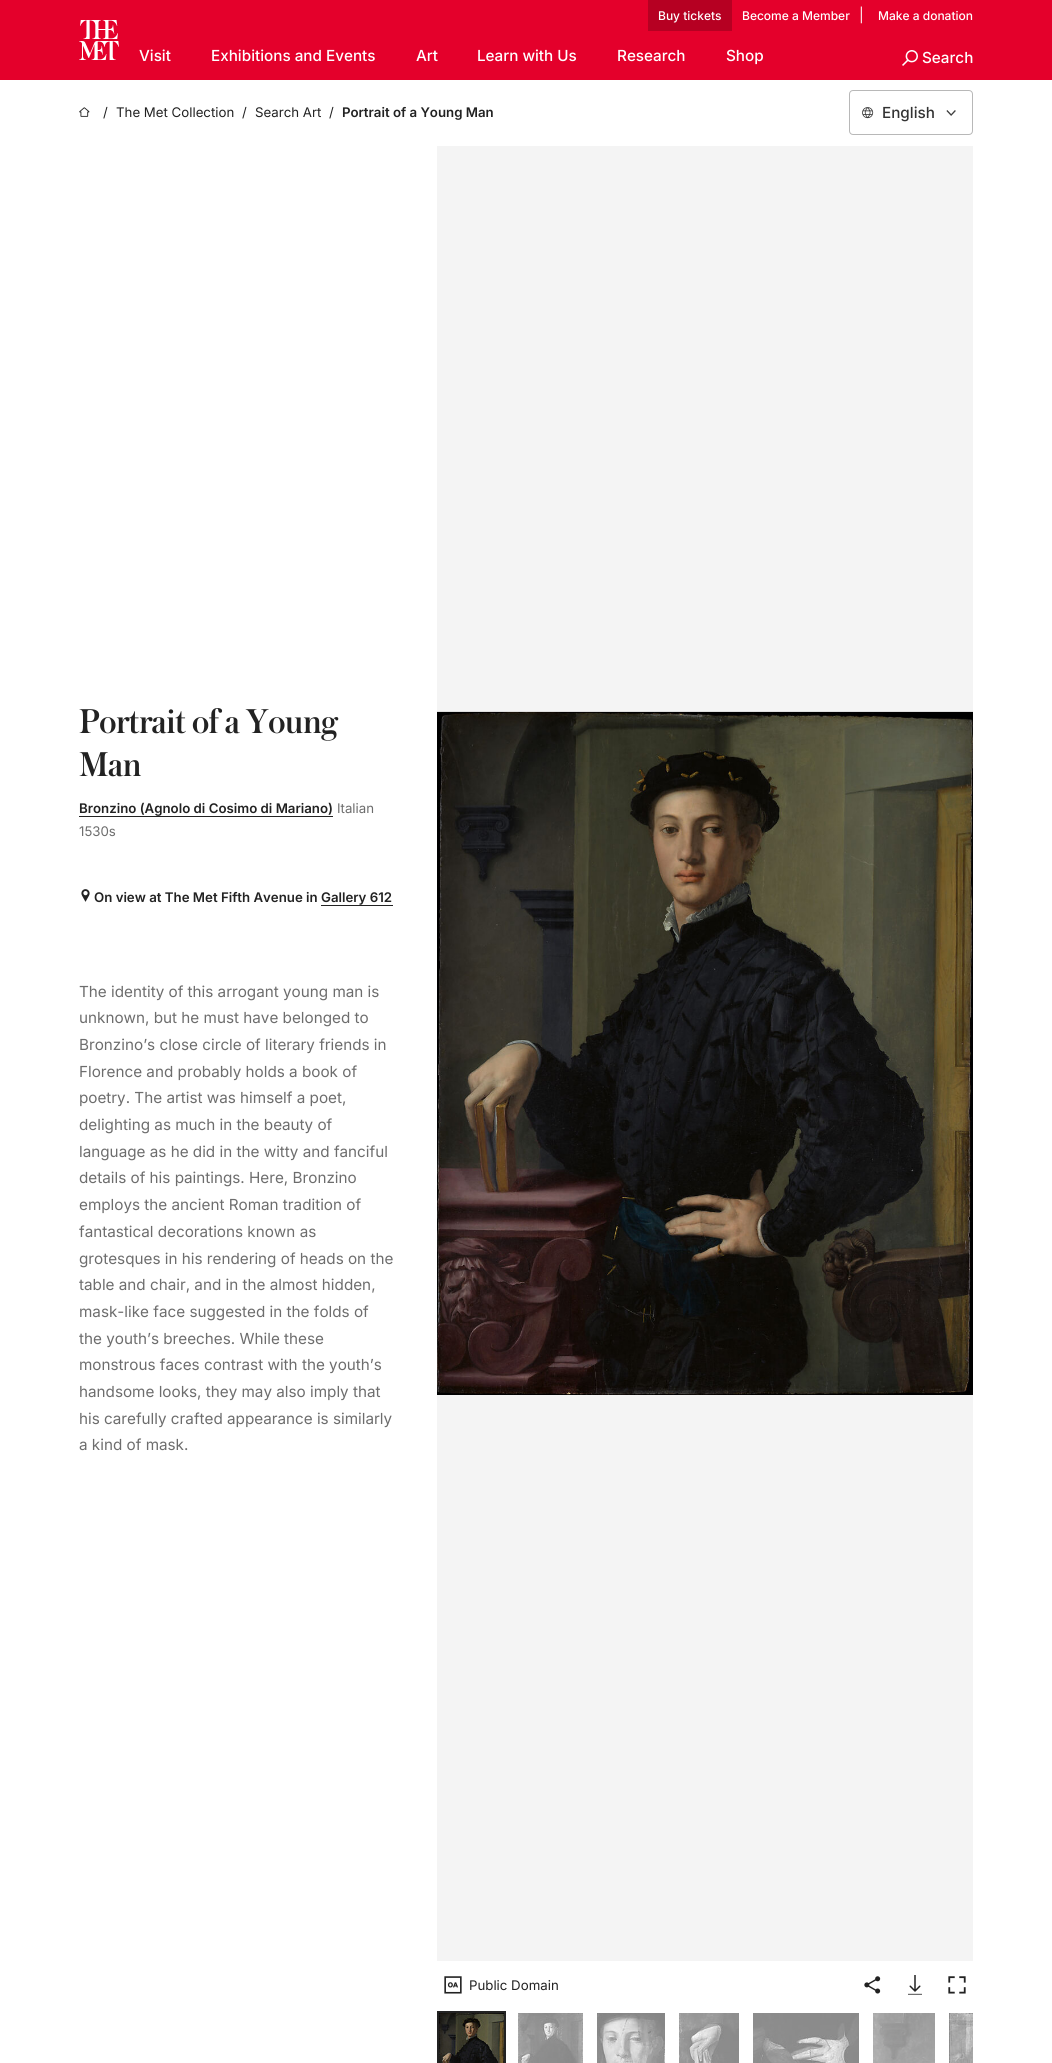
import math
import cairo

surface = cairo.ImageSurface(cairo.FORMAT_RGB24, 1052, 2063)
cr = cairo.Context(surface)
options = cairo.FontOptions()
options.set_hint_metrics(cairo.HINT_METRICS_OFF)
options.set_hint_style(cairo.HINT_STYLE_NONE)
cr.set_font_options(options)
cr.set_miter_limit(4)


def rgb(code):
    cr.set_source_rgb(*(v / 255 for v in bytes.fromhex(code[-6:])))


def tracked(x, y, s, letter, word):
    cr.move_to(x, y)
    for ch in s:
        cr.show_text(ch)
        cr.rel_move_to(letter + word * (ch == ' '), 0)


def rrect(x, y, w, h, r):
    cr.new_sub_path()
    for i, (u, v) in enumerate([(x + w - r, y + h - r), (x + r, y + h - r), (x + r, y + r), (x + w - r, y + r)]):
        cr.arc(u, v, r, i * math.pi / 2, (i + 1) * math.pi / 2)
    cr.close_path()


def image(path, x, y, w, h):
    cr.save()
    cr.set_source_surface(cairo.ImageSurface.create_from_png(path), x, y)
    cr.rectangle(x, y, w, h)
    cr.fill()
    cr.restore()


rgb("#ffffff")
cr.paint()
rgb("#e4002b")
cr.rectangle(0, 0, 1052, 80)
cr.fill()
image("img/1.png", 79, 20, 40, 40)
rgb("#b60022")
cr.rectangle(648, 0, 84, 31)
cr.fill()
image("img/2.png", 902, 50, 16, 16)
image("img/3.png", 79, 107, 11, 10)
rrect(849.5, 90.5, 123, 44, 3.5)
rgb("#b8b8b8")
cr.set_line_width(1)
cr.stroke()
image("img/4.png", 862, 107, 12, 12)
image("img/5.png", 946, 110, 10, 6)
rgb("#222222")
cr.rectangle(79, 816, 254, 1)
cr.fill()
image("img/6.png", 81, 889, 9, 13)
cr.rectangle(321, 905, 72, 1)
cr.fill()
rgb("#f4f4f4")
cr.rectangle(437, 146, 536, 1815)
cr.fill()
image("img/7.png", 437, 711, 536, 684)
image("img/8.png", 444, 1976, 18, 18)
image("img/9.png", 864, 1976, 17, 18)
image("img/10.png", 908, 1975, 14, 20)
image("img/11.png", 948, 1976, 18, 18)
cr.rectangle(438, 2012, 67, 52)
rgb("#222222")
cr.set_line_width(2)
cr.stroke()
image("img/12.png", 439, 2013, 65, 50)
image("img/13.png", 518, 2013, 65, 50)
image("img/14.png", 597, 2013, 68, 50)
image("img/15.png", 679, 2013, 60, 50)
image("img/16.png", 753, 2013, 106, 50)
image("img/17.png", 873, 2013, 62, 50)
image("img/18.png", 949, 2013, 24, 50)
cr.select_font_face("Inter Medium")
cr.set_font_size(12)
rgb("#ffffff")
cr.move_to(658, 20)
cr.show_text("Buy tickets")
cr.move_to(742, 20)
cr.show_text("Become a Member")
cr.select_font_face("Inter")
cr.set_font_size(14)
cr.move_to(859, 20)
cr.show_text("|")
cr.select_font_face("Inter Medium")
cr.set_font_size(12)
cr.move_to(878, 20)
cr.show_text("Make a donation")
cr.set_font_size(15.25)
for x, y, s in [
    (139, 61, "Visit"),
    (211, 61, "Exhibitions and Events"),
    (416, 61, "Art"),
    (477, 61, "Learn with Us"),
    (617, 61, "Research"),
    (726, 61, "Shop"),
    (922, 63, "Search"),
]:
    cr.move_to(x, y)
    cr.show_text(s)
cr.select_font_face("Inter")
cr.set_font_size(13.25)
rgb("#222222")
for x, y, s in [
    (103, 117, "/"),
    (116, 117, "The Met Collection"),
    (242, 117, "/"),
    (255, 117, "Search Art"),
    (329, 117, "/"),
]:
    cr.move_to(x, y)
    cr.show_text(s)
cr.select_font_face("Inter SemiBold")
cr.move_to(342, 117)
cr.show_text("Portrait of a Young Man")
cr.select_font_face("Inter Medium")
cr.set_font_size(15.25)
rgb("#333333")
cr.move_to(882, 118)
cr.show_text("English")
cr.select_font_face("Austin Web")
cr.set_font_size(36.25)
rgb("#222222")
tracked(79, 733, "Portrait of a Young", -0.4, 0)
tracked(79, 776, "Man", -0.4, 0)
cr.select_font_face("Inter SemiBold")
cr.set_font_size(13.25)
cr.move_to(79, 813)
cr.show_text("Bronzino (Agnolo di Cosimo di Mariano)")
cr.select_font_face("Inter")
rgb("#6d6d6d")
cr.move_to(337, 813)
cr.show_text("Italian")
cr.move_to(79, 836)
cr.show_text("1530s")
cr.select_font_face("Inter SemiBold")
rgb("#222222")
cr.move_to(94, 902)
cr.show_text("On view at The Met Fifth Avenue in Gallery 612")
cr.select_font_face("Inter")
cr.set_font_size(15.25)
rgb("#6d6d6d")
for x, y, s in [
    (79, 997, "The identity of this arrogant young man is"),
    (79, 1023, "unknown, but he must have belonged to"),
    (79, 1050, "Bronzino’s close circle of literary friends in"),
    (79, 1077, "Florence and probably holds a book of"),
    (79, 1103, "poetry. The artist was himself a poet,"),
    (79, 1130, "delighting as much in the beauty of"),
    (79, 1157, "language as he did in the witty and fanciful"),
    (79, 1183, "details of his paintings. Here, Bronzino"),
    (79, 1210, "employs the ancient Roman tradition of"),
    (79, 1237, "fantastical decorations known as"),
    (79, 1264, "grotesques in his rendering of heads on the"),
    (79, 1290, "table and chair, and in the almost hidden,"),
    (79, 1317, "mask-like face suggested in the folds of"),
    (79, 1344, "the youth’s breeches. While these"),
    (79, 1370, "monstrous faces contrast with the youth’s"),
    (79, 1397, "handsome looks, they may also imply that"),
    (79, 1424, "his carefully crafted appearance is similarly"),
    (79, 1450, "a kind of mask."),
]:
    cr.move_to(x, y)
    cr.show_text(s)
cr.set_font_size(13.25)
rgb("#222222")
cr.move_to(469, 1990)
cr.show_text("Public Domain")
surface.write_to_png("page.png")
